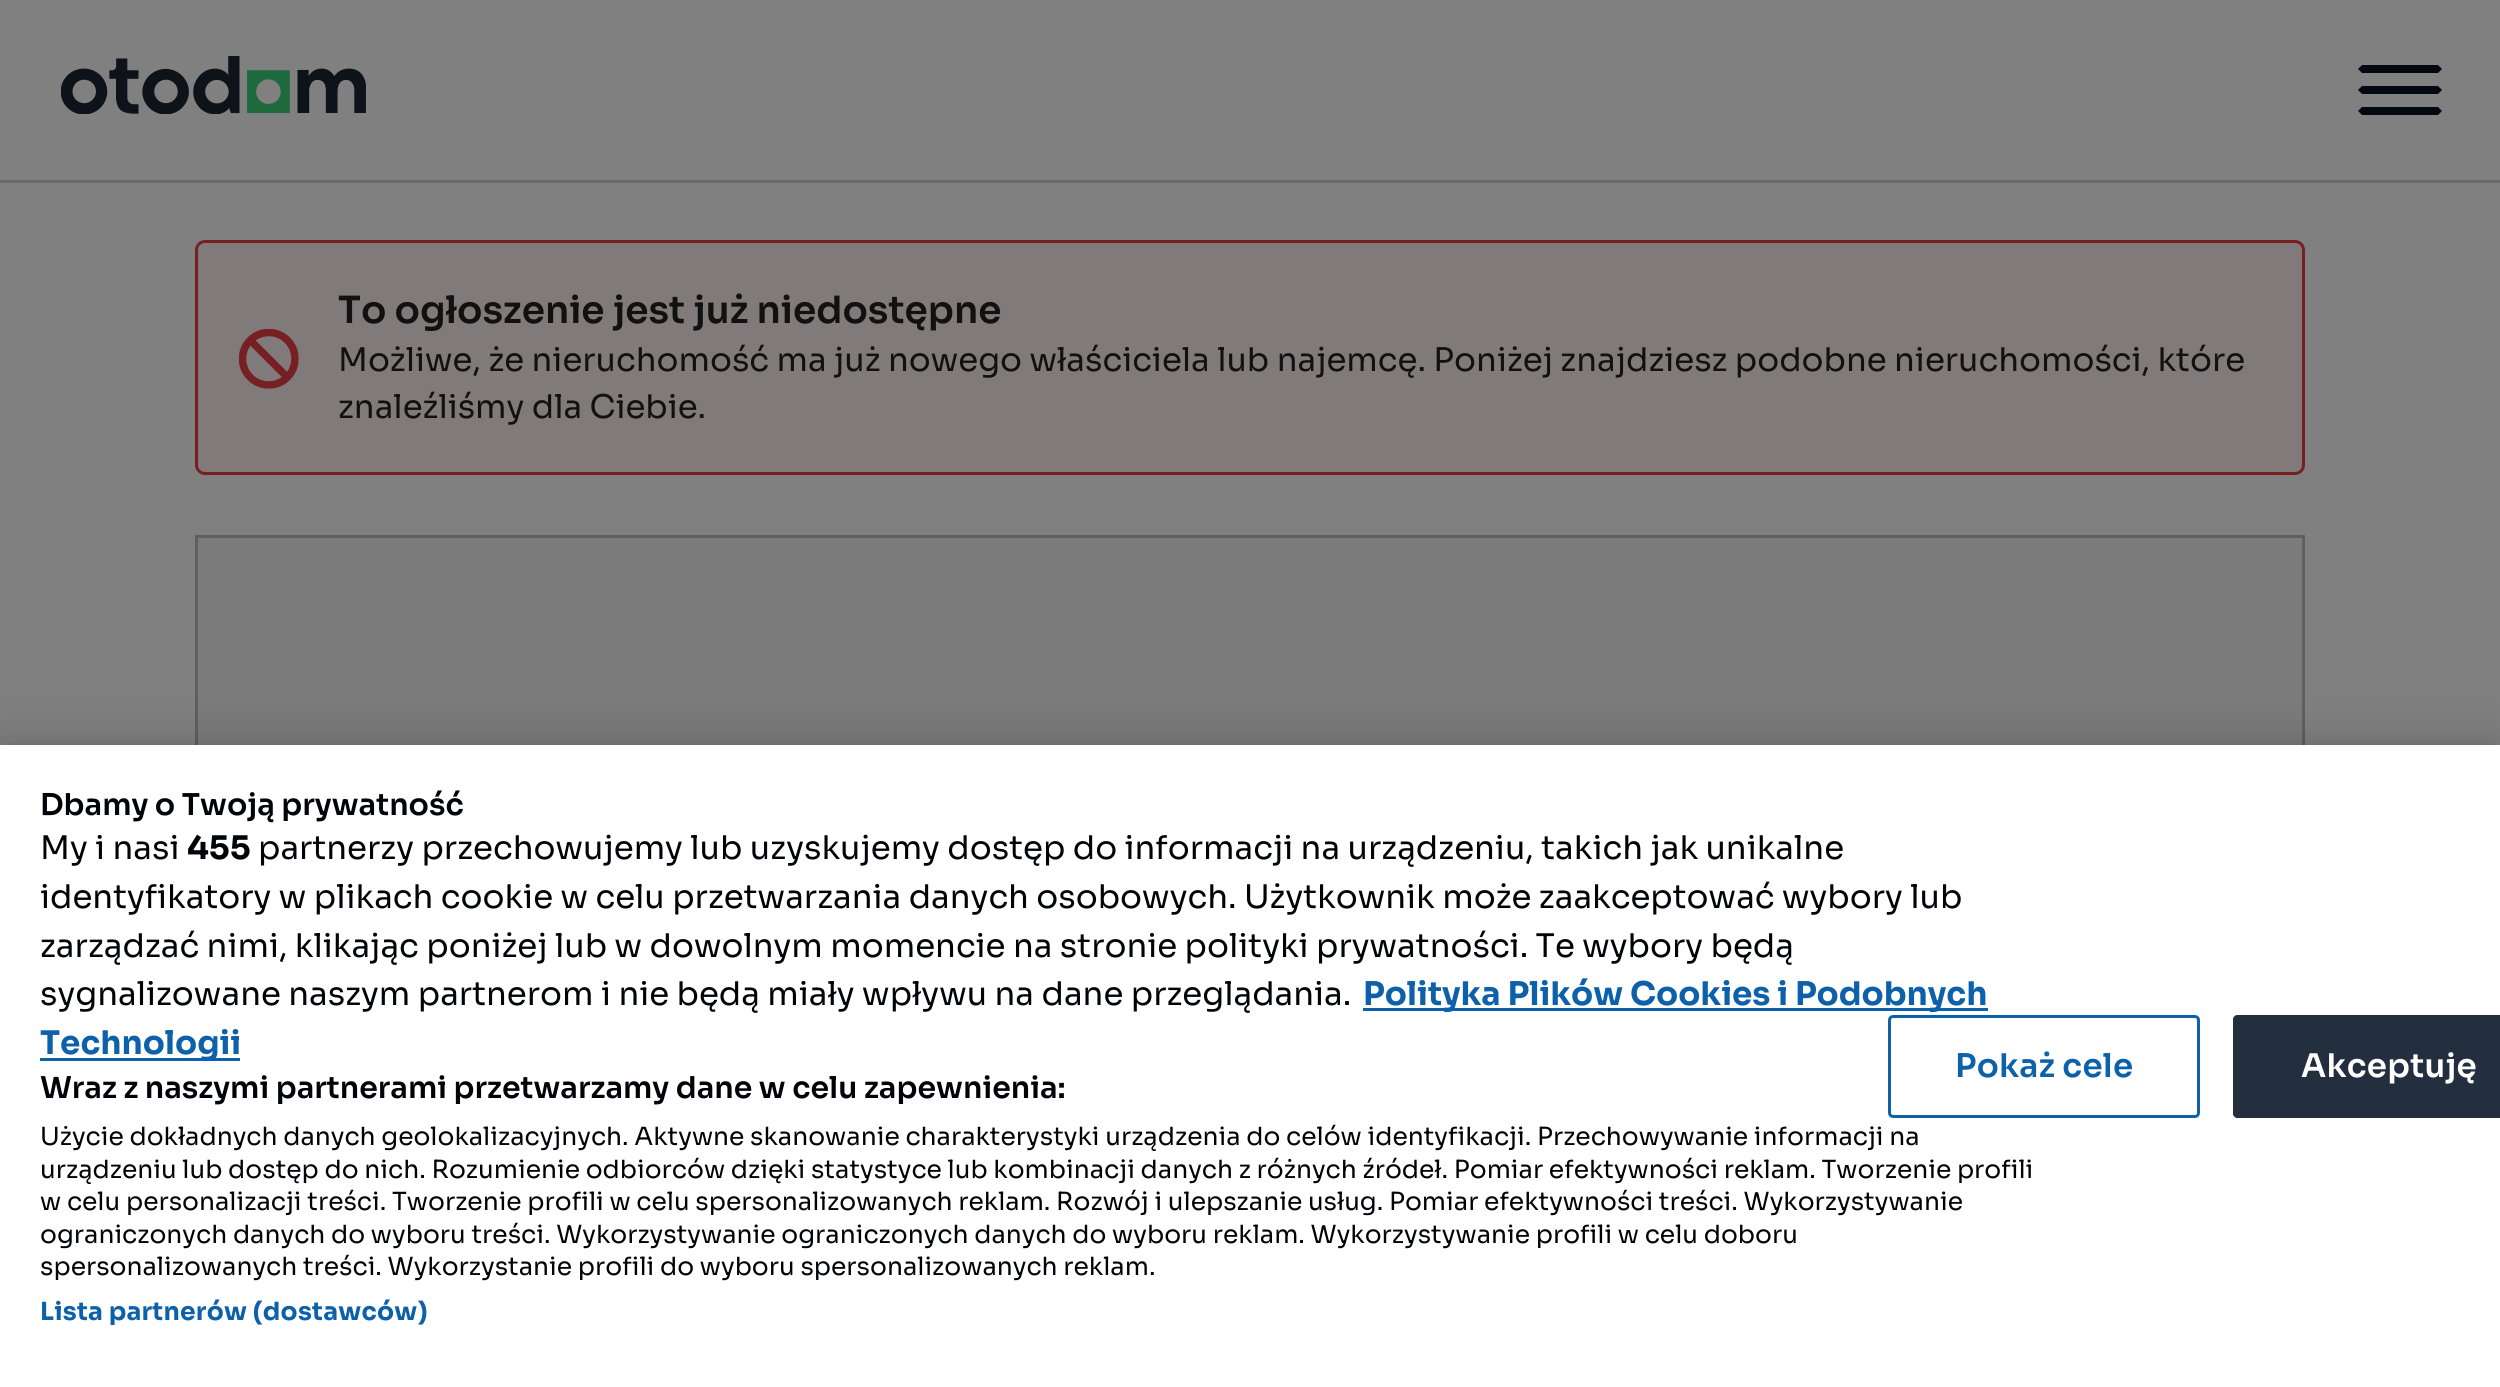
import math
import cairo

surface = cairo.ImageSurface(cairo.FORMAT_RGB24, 2500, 1387)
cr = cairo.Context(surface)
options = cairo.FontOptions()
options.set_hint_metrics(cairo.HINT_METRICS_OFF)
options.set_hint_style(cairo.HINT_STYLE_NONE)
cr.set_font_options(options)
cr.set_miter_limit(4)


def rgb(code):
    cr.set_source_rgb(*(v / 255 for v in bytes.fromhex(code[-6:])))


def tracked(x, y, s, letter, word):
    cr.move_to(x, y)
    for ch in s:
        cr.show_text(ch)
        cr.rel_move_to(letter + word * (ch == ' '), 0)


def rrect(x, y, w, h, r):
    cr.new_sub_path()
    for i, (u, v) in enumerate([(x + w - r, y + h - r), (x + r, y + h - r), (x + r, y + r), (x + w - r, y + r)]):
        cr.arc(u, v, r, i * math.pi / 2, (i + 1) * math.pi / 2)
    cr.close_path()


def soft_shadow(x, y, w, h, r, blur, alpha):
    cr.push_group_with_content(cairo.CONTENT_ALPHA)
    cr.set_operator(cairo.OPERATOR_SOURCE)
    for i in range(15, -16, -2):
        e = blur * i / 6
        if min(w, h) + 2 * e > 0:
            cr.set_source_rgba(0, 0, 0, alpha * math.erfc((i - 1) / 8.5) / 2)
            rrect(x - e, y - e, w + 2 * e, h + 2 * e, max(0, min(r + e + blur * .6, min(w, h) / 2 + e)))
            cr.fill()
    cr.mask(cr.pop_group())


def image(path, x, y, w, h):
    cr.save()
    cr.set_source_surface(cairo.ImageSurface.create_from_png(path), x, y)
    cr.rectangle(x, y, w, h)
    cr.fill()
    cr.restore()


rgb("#808080")
cr.paint()
rgb("#6a6b6d")
cr.rectangle(0, 180, 2500, 3)
cr.fill()
image("img/1.png", 61, 56, 305, 58)
rgb("#040911")
cr.new_path()
cr.move_to(2358, 69)
cr.line_to(2362, 65)
cr.line_to(2438, 65)
cr.line_to(2442, 69)
cr.line_to(2438, 73)
cr.line_to(2362, 73)
cr.close_path()
cr.move_to(2362, 86)
cr.line_to(2358, 90)
cr.line_to(2362, 94)
cr.line_to(2438, 94)
cr.line_to(2442, 90)
cr.line_to(2438, 86)
cr.close_path()
cr.move_to(2362, 107)
cr.line_to(2358, 111)
cr.line_to(2362, 115)
cr.line_to(2438, 115)
cr.line_to(2442, 111)
cr.line_to(2438, 107)
cr.close_path()
cr.fill()
rgb("#807a7a")
rrect(196.5, 241.5, 2107, 232, 8.5)
cr.fill_preserve()
rgb("#772024")
cr.set_line_width(3)
cr.stroke()
image("img/2.png", 238, 328, 61, 61)
cr.rectangle(196.5, 536.5, 2107, 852)
rgb("#5f5f5f")
cr.stroke()
cr.set_source_rgba(0.427, 0.427, 0.427, 0.2)
cr.rectangle(198, 538, 2105, 207)
cr.fill()
rgb("#000000")
soft_shadow(0, 745, 2500, 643, 0, 22.5, 0.2)
for x, y, w, h, color in [
    (0, 745, 2500, 642, "#ffffff"),
    (1363, 1008, 625, 3, "#0d61ab"),
    (40, 1058, 200, 3, "#0d61ab"),
]:
    rgb(color)
    cr.rectangle(x, y, w, h)
    cr.fill()
rrect(1889.5, 1016.5, 309, 100, 3.5)
cr.stroke()
rgb("#232e3f")
cr.new_path()
cr.move_to(2238, 1015)
cr.line_to(2500, 1015)
cr.line_to(2500, 1118)
cr.line_to(2238, 1118)
cr.curve_to(2235, 1118, 2233, 1116, 2233, 1113)
cr.line_to(2233, 1020)
cr.curve_to(2233, 1017, 2235, 1015, 2238, 1015)
cr.close_path()
cr.fill()
rrect(2234.5, 1016.5, 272, 100, 3.5)
cr.stroke()
cr.select_font_face("Sora SemiBold")
cr.set_font_size(37.5)
rgb("#111111")
cr.move_to(338, 323)
cr.show_text("To ogłoszenie jest już niedostępne")
cr.select_font_face("Sora")
cr.set_font_size(32.5)
cr.move_to(338, 371)
cr.show_text("Możliwe, że nieruchomość ma już nowego właściciela lub najemcę. Poniżej znajdziesz podobne nieruchomości, które")
cr.move_to(338, 418)
cr.show_text("znaleźliśmy dla Ciebie.")
cr.select_font_face("Sora SemiBold")
cr.set_font_size(30)
rgb("#020309")
cr.move_to(40, 815)
cr.show_text("Dbamy o Twoją prywatność")
cr.select_font_face("Sora")
cr.set_font_size(32.52)
cr.move_to(40, 859)
cr.show_text("My i nasi")
cr.select_font_face("Sora", cairo.FONT_SLANT_NORMAL, cairo.FONT_WEIGHT_BOLD)
cr.move_to(187, 859)
cr.show_text("455")
cr.select_font_face("Sora")
for x, y, s in [
    (258, 859, "partnerzy przechowujemy lub uzyskujemy dostęp do informacji na urządzeniu, takich jak unikalne"),
    (40, 908, "identyfikatory w plikach cookie w celu przetwarzania danych osobowych. Użytkownik może zaakceptować wybory lub"),
    (40, 957, "zarządzać nimi, klikając poniżej lub w dowolnym momencie na stronie polityki prywatności. Te wybory będą"),
    (40, 1005, "sygnalizowane naszym partnerom i nie będą miały wpływu na dane przeglądania."),
]:
    cr.move_to(x, y)
    cr.show_text(s)
cr.select_font_face("Sora", cairo.FONT_SLANT_NORMAL, cairo.FONT_WEIGHT_BOLD)
rgb("#0d61ab")
cr.move_to(1363, 1005)
cr.show_text("Polityka Plików Cookies i Podobnych")
cr.move_to(40, 1054)
cr.show_text("Technologii")
cr.select_font_face("Sora SemiBold")
cr.set_font_size(30)
rgb("#020309")
cr.move_to(40, 1098)
cr.show_text("Wraz z naszymi partnerami przetwarzamy dane w celu zapewnienia:")
cr.select_font_face("Sora")
cr.set_font_size(25)
for x, y, s in [
    (40, 1145, "Użycie dokładnych danych geolokalizacyjnych. Aktywne skanowanie charakterystyki urządzenia do celów identyfikacji. Przechowywanie informacji na"),
    (40, 1178, "urządzeniu lub dostęp do nich. Rozumienie odbiorców dzięki statystyce lub kombinacji danych z różnych źródeł. Pomiar efektywności reklam. Tworzenie profili"),
    (40, 1210, "w celu personalizacji treści. Tworzenie profili w celu spersonalizowanych reklam. Rozwój i ulepszanie usług. Pomiar efektywności treści. Wykorzystywanie"),
    (40, 1243, "ograniczonych danych do wyboru treści. Wykorzystywanie ograniczonych danych do wyboru reklam. Wykorzystywanie profili w celu doboru"),
    (40, 1275, "spersonalizowanych treści. Wykorzystanie profili do wyboru spersonalizowanych reklam."),
]:
    cr.move_to(x, y)
    cr.show_text(s)
cr.select_font_face("Sora", cairo.FONT_SLANT_NORMAL, cairo.FONT_WEIGHT_BOLD)
rgb("#0d61ab")
tracked(40, 1320, "Lista partnerów (dostawców)", 0.25, 0)
cr.select_font_face("Sora SemiBold")
cr.set_font_size(32.52)
tracked(1955, 1077, "Pokaż cele", 0.25, 0)
rgb("#ffffff")
tracked(2301, 1077, "Akceptuję", 0.25, 0)
surface.write_to_png("page.png")
